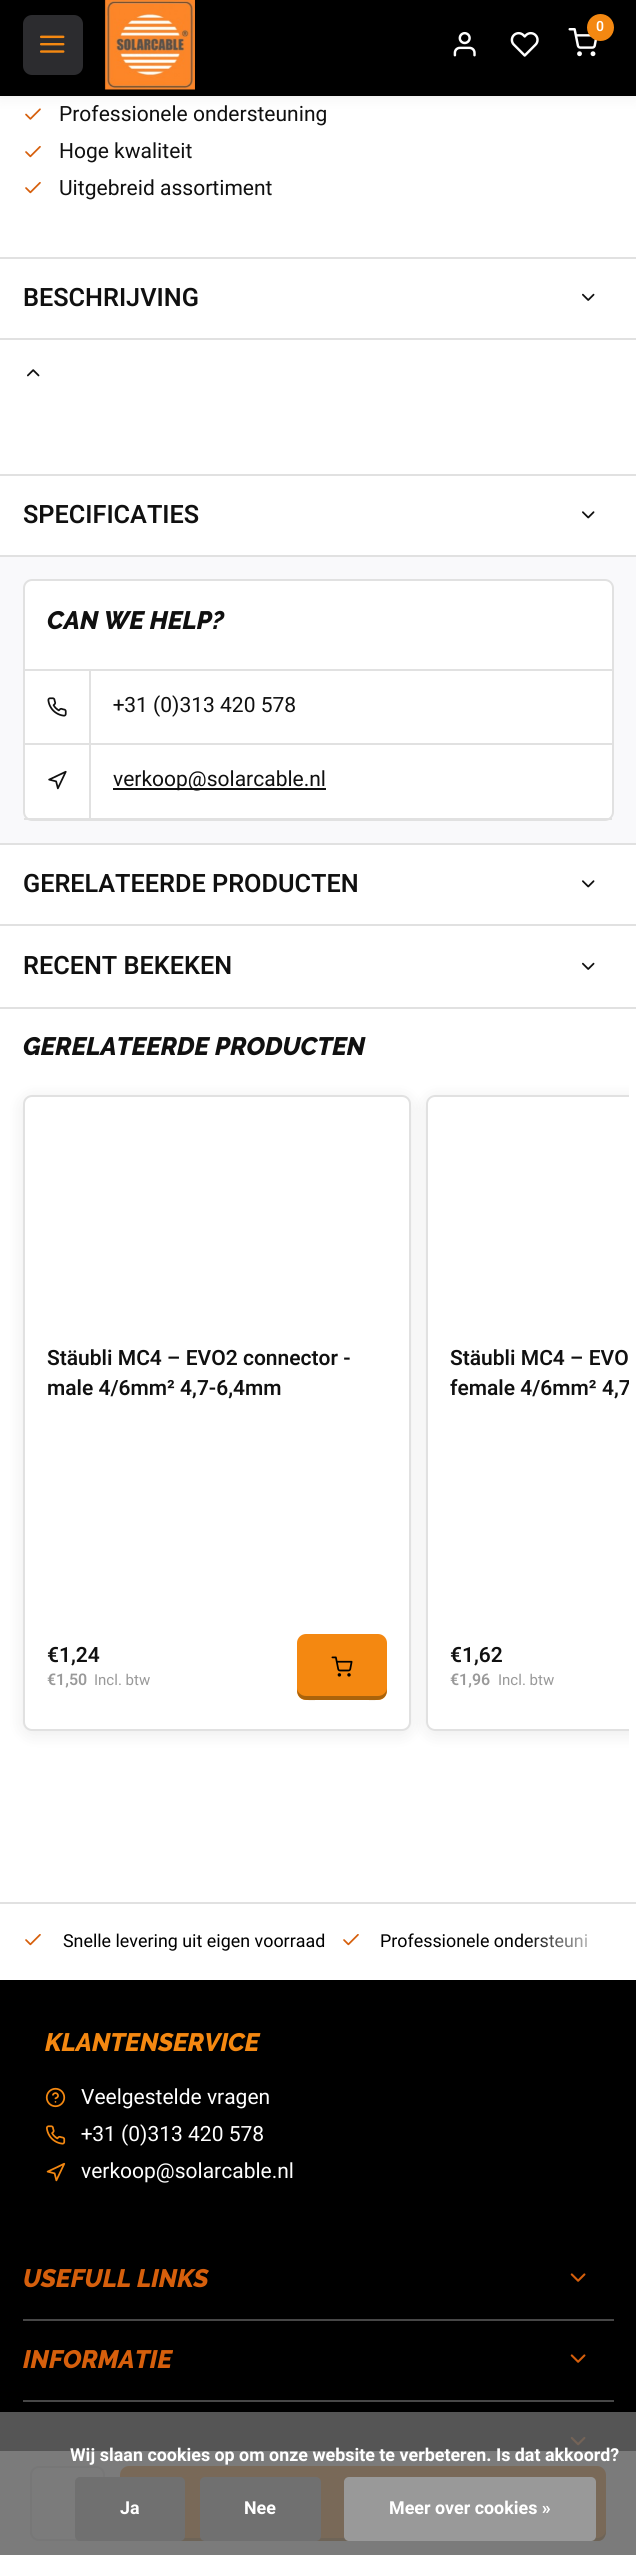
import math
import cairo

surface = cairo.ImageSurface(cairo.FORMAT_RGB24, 636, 2555)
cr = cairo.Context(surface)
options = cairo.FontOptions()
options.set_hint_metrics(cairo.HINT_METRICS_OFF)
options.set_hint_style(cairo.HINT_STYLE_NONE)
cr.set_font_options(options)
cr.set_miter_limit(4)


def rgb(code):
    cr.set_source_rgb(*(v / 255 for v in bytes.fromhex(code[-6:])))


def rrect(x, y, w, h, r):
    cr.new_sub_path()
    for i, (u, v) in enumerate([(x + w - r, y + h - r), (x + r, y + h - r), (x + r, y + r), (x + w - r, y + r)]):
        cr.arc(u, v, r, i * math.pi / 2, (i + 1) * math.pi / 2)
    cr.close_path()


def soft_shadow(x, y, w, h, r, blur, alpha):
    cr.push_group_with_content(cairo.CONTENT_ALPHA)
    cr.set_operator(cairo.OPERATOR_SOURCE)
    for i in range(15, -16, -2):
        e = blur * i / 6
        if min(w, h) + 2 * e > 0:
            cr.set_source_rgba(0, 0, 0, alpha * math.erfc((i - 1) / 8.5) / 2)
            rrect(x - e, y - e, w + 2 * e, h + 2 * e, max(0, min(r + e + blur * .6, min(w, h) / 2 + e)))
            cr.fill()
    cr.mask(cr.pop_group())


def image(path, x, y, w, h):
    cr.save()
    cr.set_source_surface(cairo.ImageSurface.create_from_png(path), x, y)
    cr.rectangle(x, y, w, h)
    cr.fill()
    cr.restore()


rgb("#ffffff")
cr.paint()
image("img/6.png", 25, 108, 16, 12)
rgb("#000000")
soft_shadow(0, 8, 636, 90, 0, 7.5, 0.05)
rgb("#000000")
cr.rectangle(0, 90, 636, 6)
cr.fill()
rgb("#000000")
soft_shadow(0, 5, 636, 90, 0, 3, 0.05)
rgb("#000000")
cr.rectangle(0, 0, 636, 90)
cr.fill()
rgb("#2c2c2f")
rrect(23, 15, 60, 60, 9)
cr.fill()
image("img/1.png", 40, 35, 25, 18)
image("img/2.png", 104, 0, 91, 90)
image("img/3.png", 568, 28, 29, 29)
rgb("#f48811")
cr.arc(600.5, 27.5, 13.5, 0, 2 * math.pi)
cr.fill()
image("img/4.png", 453, 31, 23, 26)
image("img/5.png", 510, 31, 29, 26)
rgb("#e1e1e1")
cr.rectangle(0, 257, 636, 2)
cr.fill()
image("img/7.png", 25, 146, 16, 12)
image("img/7.png", 25, 182, 16, 12)
rgb("#000000")
cr.rectangle(0, 1980, 636, 471)
cr.fill()
rgb("#474747")
cr.rectangle(23, 2400, 591, 2)
cr.fill()
image("img/18.png", 570, 2436, 16, 10)
rgb("#000000")
soft_shadow(-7, 2460, 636, 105, 0, 22.5, 0.15)
rgb("#ffffff")
cr.rectangle(0, 2451, 636, 104)
cr.fill()
rrect(31, 2467, 73, 73, 8)
rgb("#e1e1e1")
cr.stroke()
rgb("#f48811")
rrect(120, 2466, 486, 75, 9)
cr.fill()
rgb("#aa630b")
cr.new_path()
cr.move_to(120, 2529)
cr.curve_to(120, 2535, 122, 2541, 129, 2541)
cr.line_to(599, 2541)
cr.curve_to(605, 2540, 606, 2534, 606, 2529)
cr.curve_to(606, 2534, 602, 2538, 597, 2538)
cr.line_to(129, 2538)
cr.curve_to(124, 2538, 120, 2534, 120, 2529)
cr.close_path()
cr.fill()
rgb("#e1e1e1")
cr.rectangle(0, 338, 636, 2)
cr.fill()
image("img/8.png", 582, 293, 13, 8)
cr.rectangle(0, 474, 636, 2)
cr.fill()
image("img/9.png", 27, 369, 13, 8)
cr.rectangle(0, 555, 636, 2)
cr.fill()
image("img/10.png", 582, 511, 13, 8)
rgb("#f9f9fb")
cr.rectangle(0, 557, 636, 286)
cr.fill()
rgb("#e1e1e1")
cr.rectangle(0, 843, 636, 2)
cr.fill()
rgb("#ffffff")
rrect(24, 580, 589, 240, 8)
cr.fill_preserve()
rgb("#e1e1e1")
cr.stroke()
for x, y, w, h, color in [
    (24, 669, 588, 2, "#e1e1e1"),
    (24, 743, 588, 2, "#e1e1e1"),
    (89, 669, 2, 149, "#e1e1e1"),
]:
    rgb(color)
    cr.rectangle(x, y, w, h)
    cr.fill()
image("img/11.png", 47, 697, 20, 20)
cr.rectangle(24, 818, 588, 2)
cr.fill()
image("img/12.png", 48, 770, 19, 20)
rgb("#101010")
cr.rectangle(113, 788, 213, 2)
cr.fill()
rgb("#e1e1e1")
cr.rectangle(0, 924, 636, 2)
cr.fill()
image("img/10.png", 582, 880, 13, 8)
cr.rectangle(0, 1007, 636, 2)
cr.fill()
image("img/8.png", 582, 962, 13, 8)
rgb("#000000")
soft_shadow(23, 1098, 388, 636, 9, 9, 0.08)
rgb("#ffffff")
rrect(24, 1096, 386, 634, 8)
cr.fill_preserve()
rgb("#e1e1e1")
cr.stroke()
rgb("#f48811")
rrect(297, 1634, 90, 66, 9)
cr.fill()
rgb("#aa630b")
cr.new_path()
cr.move_to(297, 1688)
cr.curve_to(297, 1702, 306, 1700, 318, 1700)
cr.line_to(366, 1700)
cr.curve_to(378, 1700, 387, 1702, 387, 1688)
cr.curve_to(387, 1692, 383, 1696, 378, 1696)
cr.line_to(306, 1696)
cr.curve_to(301, 1696, 297, 1692, 297, 1688)
cr.close_path()
cr.fill()
image("img/13.png", 331, 1656, 22, 21)
cr.save()
cr.rectangle(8, 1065, 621, 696)
cr.clip()
rgb("#000000")
soft_shadow(426, 1098, 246, 636, 9, 9, 0.08)
cr.restore()
rgb("#ffffff")
cr.new_path()
cr.move_to(435, 1095)
cr.line_to(629, 1095)
cr.line_to(629, 1731)
cr.line_to(435, 1731)
cr.curve_to(430, 1731, 426, 1727, 426, 1722)
cr.line_to(426, 1104)
cr.curve_to(426, 1099, 430, 1095, 435, 1095)
cr.close_path()
cr.fill()
cr.save()
cr.rectangle(8, 1065, 621, 696)
cr.clip()
rrect(427, 1096, 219, 634, 8)
rgb("#e1e1e1")
cr.stroke()
cr.restore()
rgb("#e1e1e1")
cr.rectangle(0, 1902, 636, 2)
cr.fill()
image("img/7.png", 25, 1934, 16, 12)
image("img/7.png", 343, 1934, 16, 12)
image("img/14.png", 45, 2087, 21, 21)
image("img/15.png", 46, 2125, 20, 20)
image("img/16.png", 46, 2162, 20, 20)
rgb("#474747")
cr.rectangle(23, 2319, 591, 2)
cr.fill()
image("img/17.png", 570, 2273, 16, 9)
image("img/17.png", 570, 2354, 16, 9)
cr.set_source_rgba(0.392, 0.392, 0.392, 0.85)
cr.rectangle(0, 2412, 636, 143)
cr.fill()
rgb("#707070")
rrect(75, 2477, 110, 64, 5)
cr.fill()
rrect(200, 2477, 121, 64, 5)
cr.fill()
rgb("#999999")
rrect(344, 2477, 252, 64, 5)
cr.fill()
cr.select_font_face("Heebo SemiBold")
cr.set_font_size(14)
rgb("#ffffff")
cr.move_to(596, 31)
cr.show_text("0")
cr.select_font_face("Heebo")
cr.set_font_size(21)
rgb("#101010")
for x, y, s in [
    (59, 121, "Professionele ondersteuning"),
    (59, 158, "Hoge kwaliteit"),
    (59, 195, "Uitgebreid assortiment"),
]:
    cr.move_to(x, y)
    cr.show_text(s)
cr.select_font_face("Heebo SemiBold")
cr.set_font_size(25.25)
cr.move_to(23, 306)
cr.show_text("BESCHRIJVING")
cr.move_to(23, 523)
cr.show_text("SPECIFICATIES")
cr.select_font_face("Raleway Thin", cairo.FONT_SLANT_ITALIC)
cr.move_to(47, 629)
cr.show_text("CAN WE HELP?")
cr.select_font_face("Heebo")
cr.set_font_size(21)
cr.move_to(113, 712)
cr.show_text("+31 (0)313 420 578")
cr.move_to(113, 786)
cr.show_text("verkoop@solarcable.nl")
cr.select_font_face("Heebo SemiBold")
cr.set_font_size(25.25)
cr.move_to(23, 892)
cr.show_text("GERELATEERDE PRODUCTEN")
cr.move_to(23, 974)
cr.show_text("RECENT BEKEKEN")
cr.select_font_face("Raleway Thin", cairo.FONT_SLANT_ITALIC)
cr.move_to(23, 1055)
cr.show_text("GERELATEERDE PRODUCTEN")
cr.select_font_face("Heebo SemiBold")
cr.set_font_size(21)
for x, y, s in [
    (47, 1365, "Stäubli MC4 – EVO2 connector -"),
    (47, 1395, "male 4/6mm² 4,7-6,4mm"),
    (47, 1662, "€1,24"),
]:
    cr.move_to(x, y)
    cr.show_text(s)
cr.set_font_size(16)
rgb("#999999")
cr.move_to(47, 1685)
cr.show_text("€1,50")
cr.select_font_face("Heebo")
cr.set_font_size(15)
cr.move_to(94, 1685)
cr.show_text("Incl. btw")
cr.select_font_face("Heebo SemiBold")
cr.set_font_size(21)
rgb("#101010")
cr.move_to(450, 1365)
cr.show_text("Stäubli MC4 – EVO")
cr.move_to(450, 1395)
cr.show_text("female 4/6mm²")
cr.save()
cr.rectangle(450, 1344, 179, 72)
cr.clip()
cr.move_to(602, 1395)
cr.show_text("4,7")
cr.restore()
cr.move_to(450, 1662)
cr.show_text("€1,62")
cr.set_font_size(16)
rgb("#999999")
cr.move_to(450, 1685)
cr.show_text("€1,96")
cr.select_font_face("Heebo")
cr.set_font_size(15)
cr.move_to(498, 1685)
cr.show_text("Incl. btw")
cr.set_font_size(17.85)
rgb("#000000")
cr.move_to(63, 1947)
cr.show_text("Snelle levering uit eigen voorraad")
cr.move_to(380, 1947)
cr.show_text("Professionele ondersteuni")
gradient = cairo.LinearGradient(525, 1942, 614, 1942)
gradient.add_color_stop_rgba(0, 1, 1, 1, 0)
gradient.add_color_stop_rgba(1, 1, 1, 1, 1)
cr.set_source(gradient)
cr.rectangle(527, 1934, 61, 14)
cr.fill()
cr.select_font_face("Raleway Thin", cairo.FONT_SLANT_ITALIC)
cr.set_font_size(25.25)
rgb("#f48811")
cr.move_to(45, 2051)
cr.show_text("KLANTENSERVICE")
cr.select_font_face("Heebo")
cr.set_font_size(21)
rgb("#ffffff")
for x, y, s in [
    (81, 2104, "Veelgestelde vragen"),
    (81, 2141, "+31 (0)313 420 578"),
    (81, 2178, "verkoop@solarcable.nl"),
]:
    cr.move_to(x, y)
    cr.show_text(s)
cr.select_font_face("Raleway Thin", cairo.FONT_SLANT_ITALIC)
cr.set_font_size(25.25)
rgb("#d65f0c")
cr.move_to(23, 2287)
cr.show_text("USEFULL LINKS")
cr.move_to(23, 2368)
cr.show_text("INFORMATIE")
cr.select_font_face("Heebo", cairo.FONT_SLANT_NORMAL, cairo.FONT_WEIGHT_BOLD)
cr.set_font_size(17.85)
rgb("#ffffff")
for x, y, s in [
    (70, 2461, "Wij slaan cookies op om onze website te verbeteren. Is dat akkoord?"),
    (120, 2514, "Ja"),
    (244, 2514, "Nee"),
    (389, 2514, "Meer over cookies »"),
]:
    cr.move_to(x, y)
    cr.show_text(s)
surface.write_to_png("page.png")
